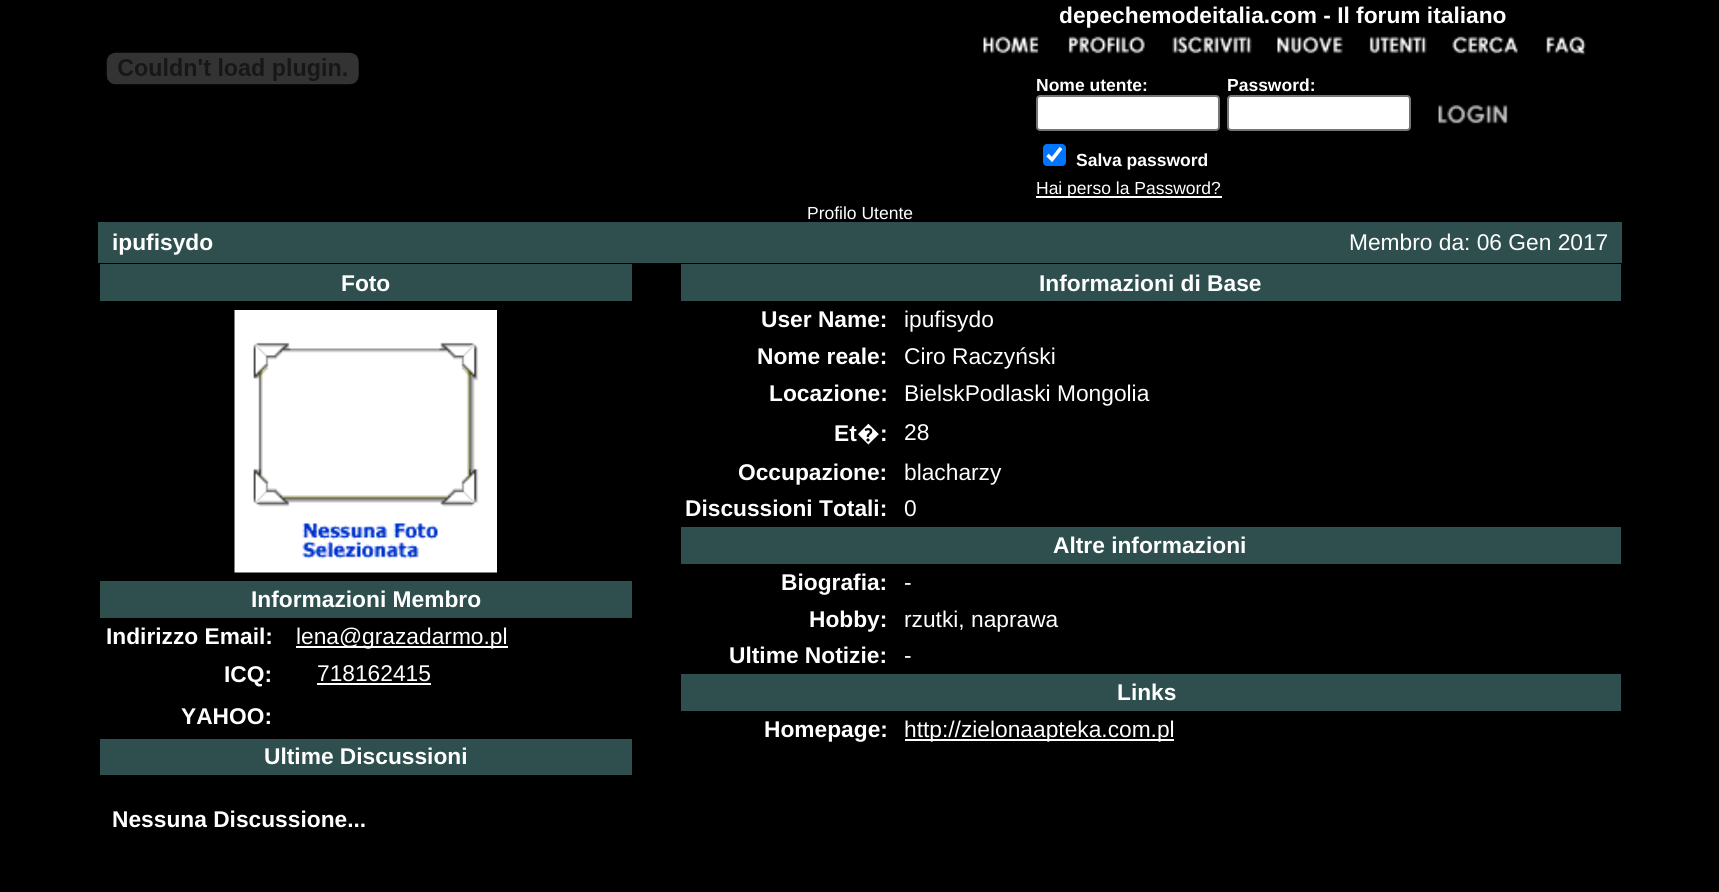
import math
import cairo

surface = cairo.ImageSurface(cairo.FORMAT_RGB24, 1719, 892)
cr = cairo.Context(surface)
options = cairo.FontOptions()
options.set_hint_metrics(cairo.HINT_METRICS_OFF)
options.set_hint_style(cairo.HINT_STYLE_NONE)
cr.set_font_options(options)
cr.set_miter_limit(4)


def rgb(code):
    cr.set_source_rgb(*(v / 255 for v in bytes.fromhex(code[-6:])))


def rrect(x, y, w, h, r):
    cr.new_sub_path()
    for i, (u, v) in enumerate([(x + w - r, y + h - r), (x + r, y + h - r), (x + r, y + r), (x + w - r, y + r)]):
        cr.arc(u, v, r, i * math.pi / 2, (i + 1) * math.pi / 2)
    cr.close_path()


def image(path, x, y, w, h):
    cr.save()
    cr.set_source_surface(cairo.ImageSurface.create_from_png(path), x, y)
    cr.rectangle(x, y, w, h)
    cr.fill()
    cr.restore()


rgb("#000000")
cr.paint()
image("img/1.png", 106, 52, 253, 33)
image("img/2.png", 983, 36, 56, 18)
image("img/3.png", 1068, 36, 77, 18)
image("img/4.png", 1172, 36, 80, 18)
image("img/5.png", 1277, 36, 66, 18)
image("img/6.png", 1369, 36, 58, 18)
image("img/7.png", 1452, 36, 66, 18)
image("img/8.png", 1546, 36, 40, 19)
rgb("#ffffff")
rrect(1037, 96, 182, 34, 3)
cr.fill_preserve()
rgb("#767676")
cr.stroke()
rgb("#ffffff")
rrect(1228, 96, 182, 34, 3)
cr.fill_preserve()
rgb("#767676")
cr.stroke()
image("img/9.png", 1438, 104, 70, 20)
rgb("#0075ff")
rrect(1043, 144, 23, 22, 4)
cr.fill()
cr.new_path()
cr.move_to(1047.5, 155)
cr.line_to(1052, 159.5)
cr.line_to(1061, 148)
rgb("#ffffff")
cr.set_line_width(3.6)
cr.stroke()
for x, y, w, h, color in [
    (1036, 196, 186, 2, "#ffffff"),
    (98, 222, 1524, 41, "#2f4f4f"),
    (100, 264, 532, 37, "#2f4f4f"),
]:
    rgb(color)
    cr.rectangle(x, y, w, h)
    cr.fill()
image("img/10.png", 234, 310, 263, 263)
for x, y, w, h, color in [
    (100, 581, 532, 37, "#2f4f4f"),
    (296, 646, 212, 2, "#ffffff"),
    (317, 683, 114, 2, "#ffffff"),
    (100, 739, 532, 36, "#2f4f4f"),
    (681, 264, 940, 37, "#2f4f4f"),
    (681, 527, 940, 37, "#2f4f4f"),
    (681, 674, 940, 37, "#2f4f4f"),
    (905, 739, 269, 2, "#ffffff"),
]:
    rgb(color)
    cr.rectangle(x, y, w, h)
    cr.fill()
cr.select_font_face("Liberation Sans", cairo.FONT_SLANT_NORMAL, cairo.FONT_WEIGHT_BOLD)
cr.set_font_size(22.75)
cr.move_to(1059, 23)
cr.show_text("depechemodeitalia.com - Il forum italiano")
cr.set_font_size(17.5)
for x, y, s in [
    (1036, 91, "Nome utente:"),
    (1227, 91, "Password:"),
    (1076, 166, "Salva password"),
]:
    cr.move_to(x, y)
    cr.show_text(s)
cr.select_font_face("Liberation Sans")
cr.move_to(1036, 194)
cr.show_text("Hai perso la Password?")
cr.move_to(807, 219)
cr.show_text("Profilo Utente")
cr.select_font_face("Liberation Sans", cairo.FONT_SLANT_NORMAL, cairo.FONT_WEIGHT_BOLD)
cr.set_font_size(22.75)
cr.move_to(112, 250)
cr.show_text("ipufisydo")
cr.select_font_face("Liberation Sans")
cr.move_to(1349, 250)
cr.show_text("Membro da: 06 Gen 2017")
cr.select_font_face("Liberation Sans", cairo.FONT_SLANT_NORMAL, cairo.FONT_WEIGHT_BOLD)
for x, y, s in [
    (341, 291, "Foto"),
    (251, 607, "Informazioni Membro"),
    (106, 644, "Indirizzo Email:"),
]:
    cr.move_to(x, y)
    cr.show_text(s)
cr.select_font_face("Liberation Sans")
cr.move_to(296, 644)
cr.show_text("lena@grazadarmo.pl")
cr.select_font_face("Liberation Sans", cairo.FONT_SLANT_NORMAL, cairo.FONT_WEIGHT_BOLD)
cr.move_to(224, 682)
cr.show_text("ICQ:")
cr.select_font_face("Liberation Sans")
cr.move_to(317, 681)
cr.show_text("718162415")
cr.select_font_face("Liberation Sans", cairo.FONT_SLANT_NORMAL, cairo.FONT_WEIGHT_BOLD)
for x, y, s in [
    (181, 724, "YAHOO:"),
    (264, 764, "Ultime Discussioni"),
    (112, 827, "Nessuna Discussione..."),
    (1039, 291, "Informazioni di Base"),
    (761, 327, "User Name:"),
]:
    cr.move_to(x, y)
    cr.show_text(s)
cr.select_font_face("Liberation Sans")
cr.move_to(904, 327)
cr.show_text("ipufisydo")
cr.select_font_face("Liberation Sans", cairo.FONT_SLANT_NORMAL, cairo.FONT_WEIGHT_BOLD)
cr.move_to(757, 364)
cr.show_text("Nome reale:")
cr.select_font_face("Liberation Sans")
cr.move_to(904, 364)
cr.show_text("Ciro Raczyński")
cr.select_font_face("Liberation Sans", cairo.FONT_SLANT_NORMAL, cairo.FONT_WEIGHT_BOLD)
cr.move_to(769, 401)
cr.show_text("Locazione:")
cr.select_font_face("Liberation Sans")
cr.move_to(904, 401)
cr.show_text("BielskPodlaski Mongolia")
cr.select_font_face("Liberation Sans", cairo.FONT_SLANT_NORMAL, cairo.FONT_WEIGHT_BOLD)
cr.move_to(834, 441)
cr.show_text("Et")
cr.select_font_face("Noto Sans", cairo.FONT_SLANT_NORMAL, cairo.FONT_WEIGHT_BOLD)
cr.move_to(857, 441)
cr.show_text("�")
cr.select_font_face("Liberation Sans", cairo.FONT_SLANT_NORMAL, cairo.FONT_WEIGHT_BOLD)
cr.move_to(880, 441)
cr.show_text(":")
cr.select_font_face("Liberation Sans")
cr.move_to(904, 440)
cr.show_text("28")
cr.select_font_face("Liberation Sans", cairo.FONT_SLANT_NORMAL, cairo.FONT_WEIGHT_BOLD)
cr.move_to(738, 480)
cr.show_text("Occupazione:")
cr.select_font_face("Liberation Sans")
cr.move_to(904, 480)
cr.show_text("blacharzy")
cr.select_font_face("Liberation Sans", cairo.FONT_SLANT_NORMAL, cairo.FONT_WEIGHT_BOLD)
cr.move_to(685, 516)
cr.show_text("Discussioni Totali:")
cr.select_font_face("Liberation Sans")
cr.move_to(904, 516)
cr.show_text("0")
cr.select_font_face("Liberation Sans", cairo.FONT_SLANT_NORMAL, cairo.FONT_WEIGHT_BOLD)
cr.move_to(1053, 553)
cr.show_text("Altre informazioni")
cr.move_to(781, 590)
cr.show_text("Biografia:")
cr.select_font_face("Liberation Sans")
cr.move_to(904, 590)
cr.show_text("-")
cr.select_font_face("Liberation Sans", cairo.FONT_SLANT_NORMAL, cairo.FONT_WEIGHT_BOLD)
cr.move_to(809, 627)
cr.show_text("Hobby:")
cr.select_font_face("Liberation Sans")
cr.move_to(904, 627)
cr.show_text("rzutki, naprawa")
cr.select_font_face("Liberation Sans", cairo.FONT_SLANT_NORMAL, cairo.FONT_WEIGHT_BOLD)
cr.move_to(729, 663)
cr.show_text("Ultime Notizie:")
cr.select_font_face("Liberation Sans")
cr.move_to(904, 663)
cr.show_text("-")
cr.select_font_face("Liberation Sans", cairo.FONT_SLANT_NORMAL, cairo.FONT_WEIGHT_BOLD)
cr.move_to(1117, 700)
cr.show_text("Links")
cr.move_to(764, 737)
cr.show_text("Homepage:")
cr.select_font_face("Liberation Sans")
cr.move_to(904, 737)
cr.show_text("http://zielonaapteka.com.pl")
surface.write_to_png("page.png")
